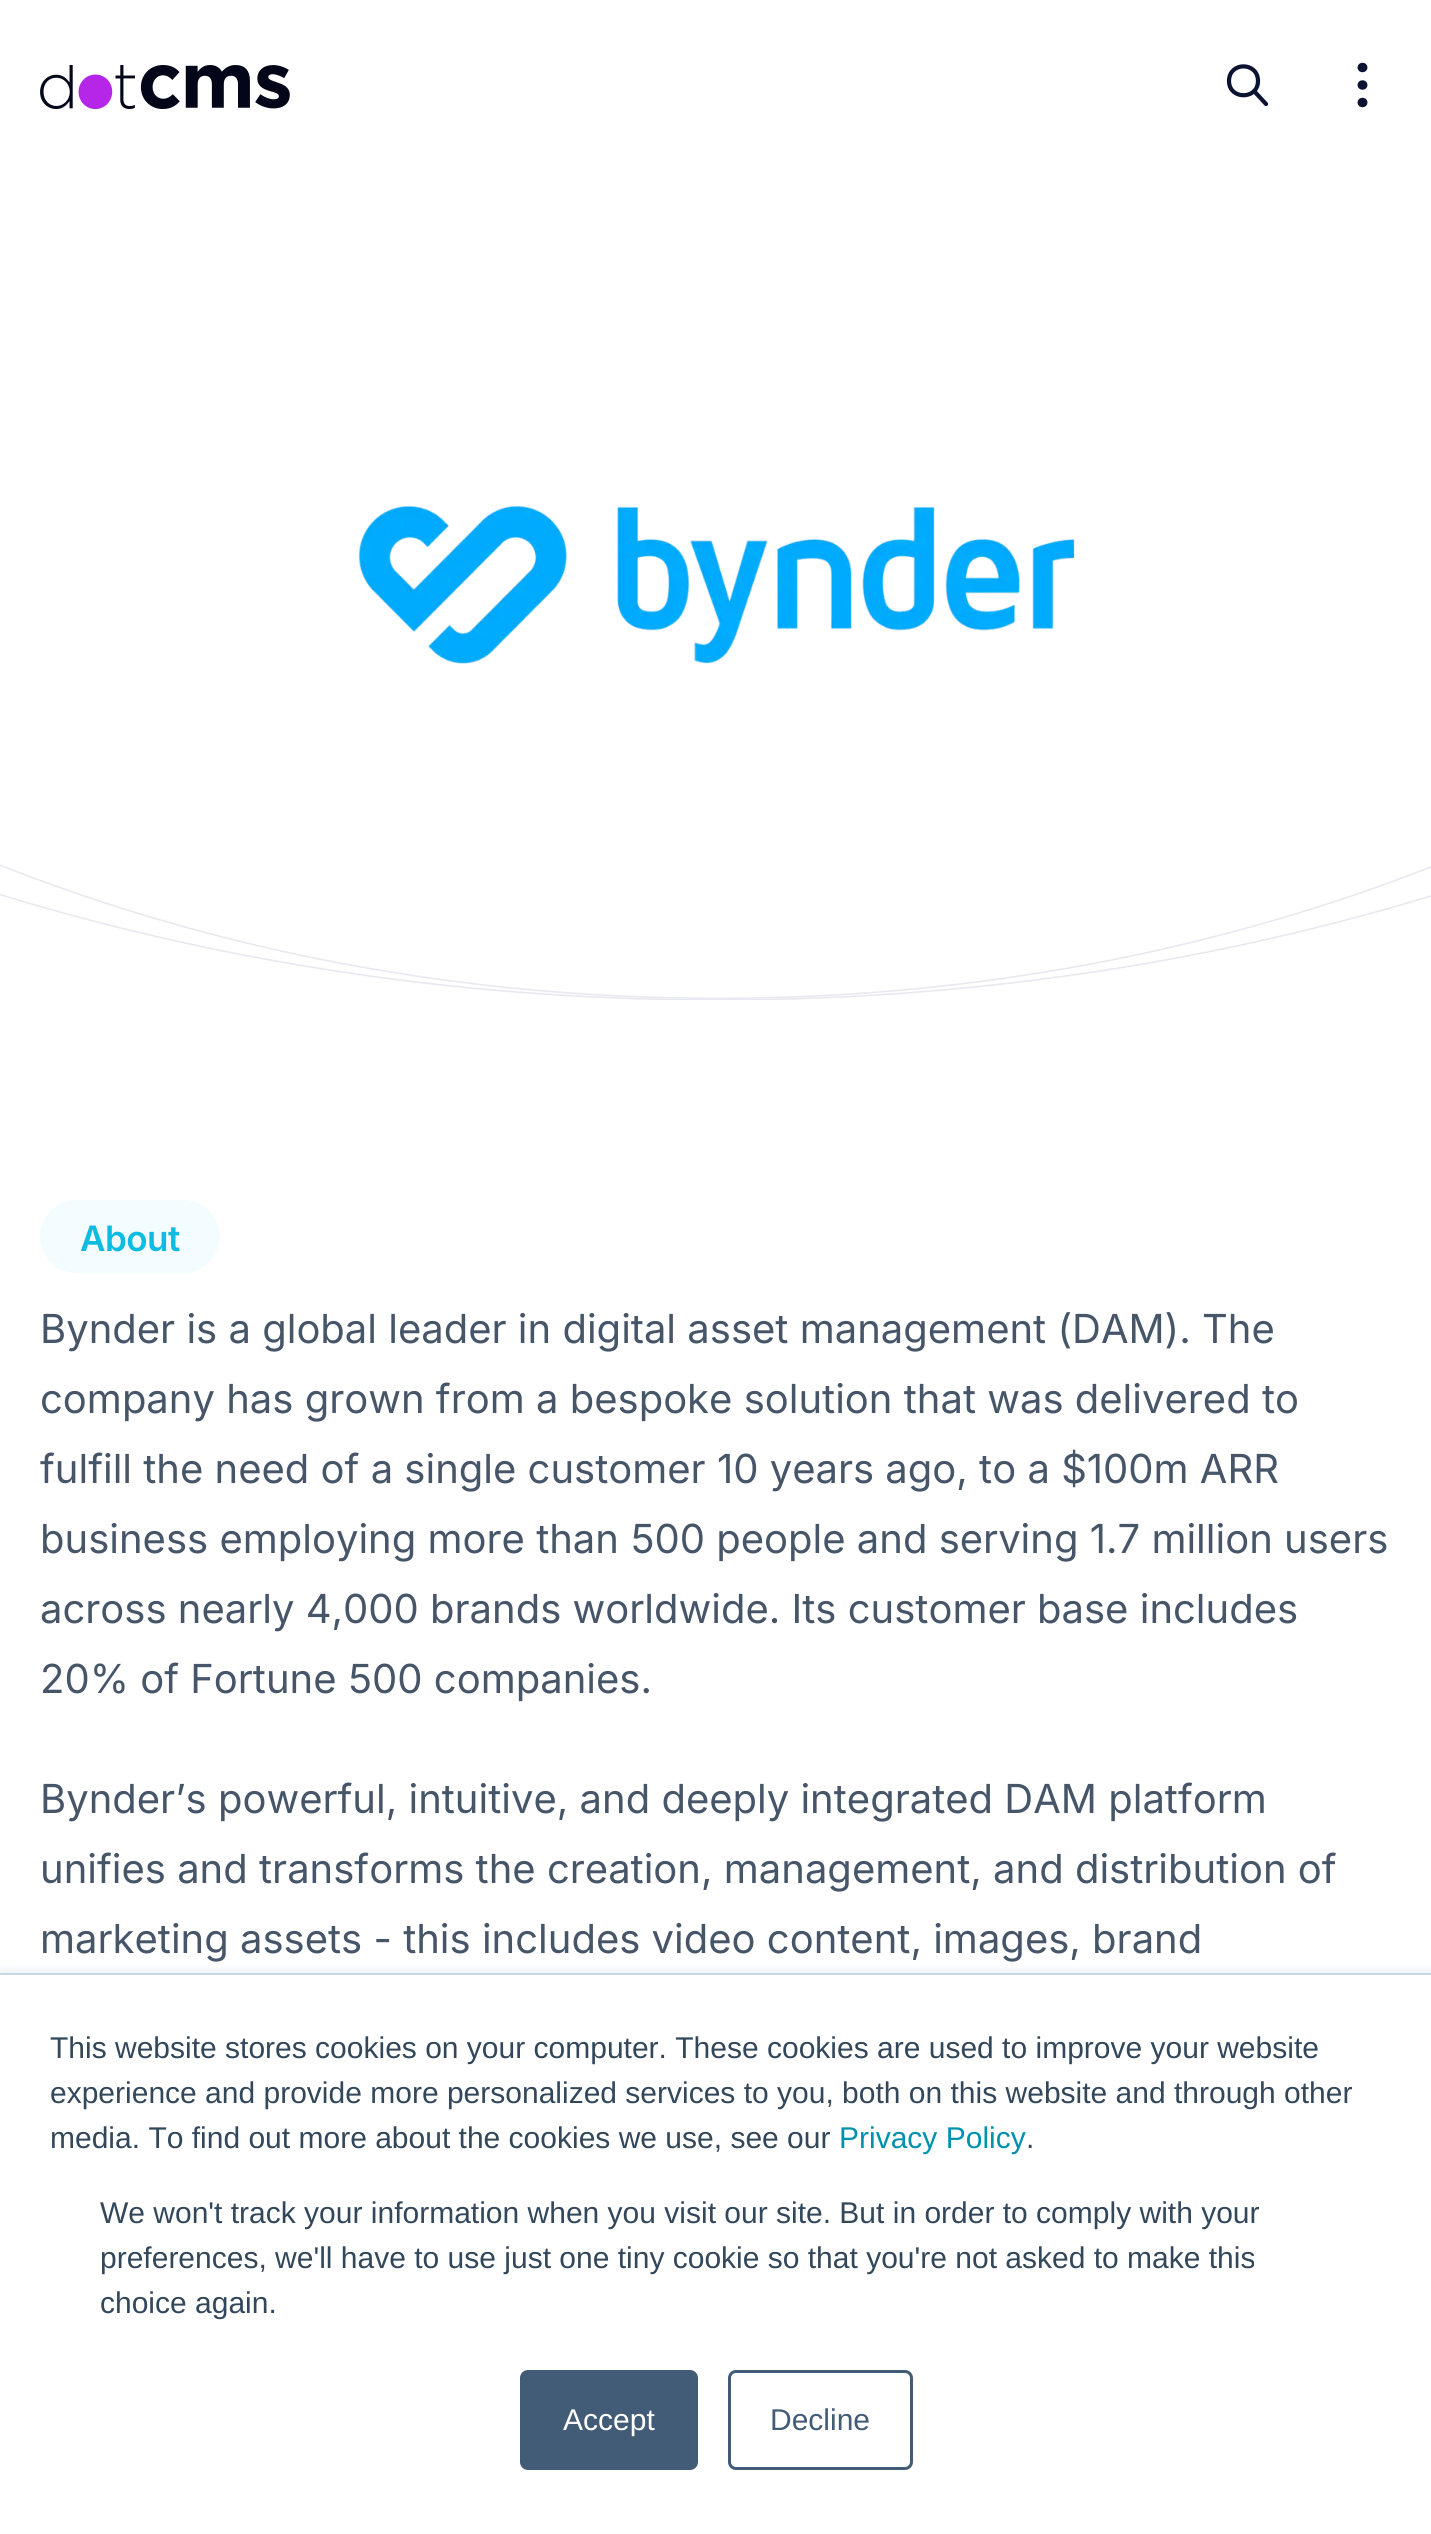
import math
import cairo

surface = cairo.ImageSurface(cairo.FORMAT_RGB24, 1431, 2534)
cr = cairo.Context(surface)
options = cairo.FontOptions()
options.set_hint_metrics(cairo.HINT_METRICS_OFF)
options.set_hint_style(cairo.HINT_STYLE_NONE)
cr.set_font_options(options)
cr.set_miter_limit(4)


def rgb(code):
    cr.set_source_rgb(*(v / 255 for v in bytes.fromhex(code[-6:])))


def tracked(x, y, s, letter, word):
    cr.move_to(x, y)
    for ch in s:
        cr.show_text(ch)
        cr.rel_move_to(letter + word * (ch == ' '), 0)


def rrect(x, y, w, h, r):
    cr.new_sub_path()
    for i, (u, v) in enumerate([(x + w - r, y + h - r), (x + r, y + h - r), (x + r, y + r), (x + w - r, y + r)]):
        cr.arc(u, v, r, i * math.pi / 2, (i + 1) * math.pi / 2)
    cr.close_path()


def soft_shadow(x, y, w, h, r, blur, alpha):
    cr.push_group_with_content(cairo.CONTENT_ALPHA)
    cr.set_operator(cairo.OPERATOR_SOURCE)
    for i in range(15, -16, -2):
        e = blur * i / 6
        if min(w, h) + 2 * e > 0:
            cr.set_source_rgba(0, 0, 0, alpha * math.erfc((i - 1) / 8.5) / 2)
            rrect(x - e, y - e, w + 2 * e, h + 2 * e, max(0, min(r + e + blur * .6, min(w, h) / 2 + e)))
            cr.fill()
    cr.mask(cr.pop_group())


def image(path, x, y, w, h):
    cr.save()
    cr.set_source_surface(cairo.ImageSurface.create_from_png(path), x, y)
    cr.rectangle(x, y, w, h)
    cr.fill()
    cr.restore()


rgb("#ffffff")
cr.paint()
image("img/1.png", 40, 65, 250, 44)
cr.new_path()
cr.move_to(1229, 81)
cr.curve_to(1229, 100, 1258, 100, 1258, 81)
cr.curve_to(1258, 61.5, 1229, 61.5, 1229, 81)
cr.move_to(1266, 104)
cr.line_to(1254, 91)
rgb("#0c1231")
cr.set_line_width(4.2)
cr.set_line_cap(cairo.LINE_CAP_ROUND)
cr.set_line_join(cairo.LINE_JOIN_ROUND)
cr.stroke()
cr.new_path()
cr.move_to(1360, 85)
cr.curve_to(1360, 88, 1365, 88, 1365, 85)
cr.curve_to(1365, 82, 1360, 82, 1360, 85)
cr.move_to(1360, 102.5)
cr.curve_to(1360, 105.5, 1365, 105.5, 1365, 102.5)
cr.curve_to(1365, 99.5, 1360, 99.5, 1360, 102.5)
cr.move_to(1360, 67.5)
cr.curve_to(1360, 70.5, 1365, 70.5, 1365, 67.5)
cr.curve_to(1365, 64.5, 1360, 64.5, 1360, 67.5)
cr.set_line_width(5)
cr.stroke()
image("img/2.png", 0, 864, 1431, 136)
image("img/3.png", 358, 505, 717, 159)
rgb("#f3fcfe")
rrect(40, 1200, 180, 73, 36.5)
cr.fill()
rgb("#eaf0f6")
soft_shadow(0, 1970, 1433, 563, 0, 4, 1)
rgb("#cbd6e2")
cr.rectangle(0, 1973, 1431, 2)
cr.fill()
rgb("#ffffff")
cr.rectangle(0, 1975, 1431, 559)
cr.fill()
rgb("#425b76")
rrect(521.5, 2371.5, 175, 97, 6.5)
cr.fill_preserve()
cr.set_line_width(3)
cr.set_line_cap(cairo.LINE_CAP_BUTT)
cr.set_line_join(cairo.LINE_JOIN_MITER)
cr.stroke()
rrect(729.5, 2371.5, 182, 97, 6.5)
cr.stroke()
cr.select_font_face("Inter SemiBold")
cr.set_font_size(35)
rgb("#0dbce0")
tracked(80, 1251, "About", -0.5, 0)
cr.select_font_face("Inter")
cr.set_font_size(40)
rgb("#475569")
for x, y, s in [
    (40, 1343, "Bynder is a global leader in digital asset management (DAM). The"),
    (40, 1413, "company has grown from a bespoke solution that was delivered to"),
    (40, 1483, "fulfill the need of a single customer 10 years ago, to a $100m ARR"),
    (40, 1553, "business employing more than 500 people and serving 1.7 million users"),
    (40, 1623, "across nearly 4,000 brands worldwide. Its customer base includes"),
    (40, 1693, "20% of Fortune 500 companies."),
    (40, 1813, "Bynder’s powerful, intuitive, and deeply integrated DAM platform"),
    (40, 1883, "unifies and transforms the creation, management, and distribution of"),
    (40, 1953, "marketing assets - this includes video content, images, brand"),
]:
    cr.move_to(x, y)
    cr.show_text(s)
cr.select_font_face("Liberation Sans")
cr.set_font_size(30)
rgb("#33475b")
for x, y, s in [
    (50, 2058, "This website stores cookies on your computer. These cookies are used to improve your website"),
    (50, 2103, "experience and provide more personalized services to you, both on this website and through other"),
    (50, 2148, "media. To find out more about the cookies we use, see our"),
]:
    cr.move_to(x, y)
    cr.show_text(s)
rgb("#0091ae")
cr.move_to(839, 2148)
cr.show_text("Privacy Policy")
rgb("#33475b")
for x, y, s in [
    (1026, 2148, "."),
    (100, 2223, "We won't track your information when you visit our site. But in order to comply with your"),
    (100, 2268, "preferences, we'll have to use just one tiny cookie so that you're not asked to make this"),
    (100, 2313, "choice again."),
]:
    cr.move_to(x, y)
    cr.show_text(s)
rgb("#ffffff")
cr.move_to(563, 2430)
cr.show_text("Accept")
rgb("#425b76")
cr.move_to(770, 2430)
cr.show_text("Decline")
surface.write_to_png("page.png")
